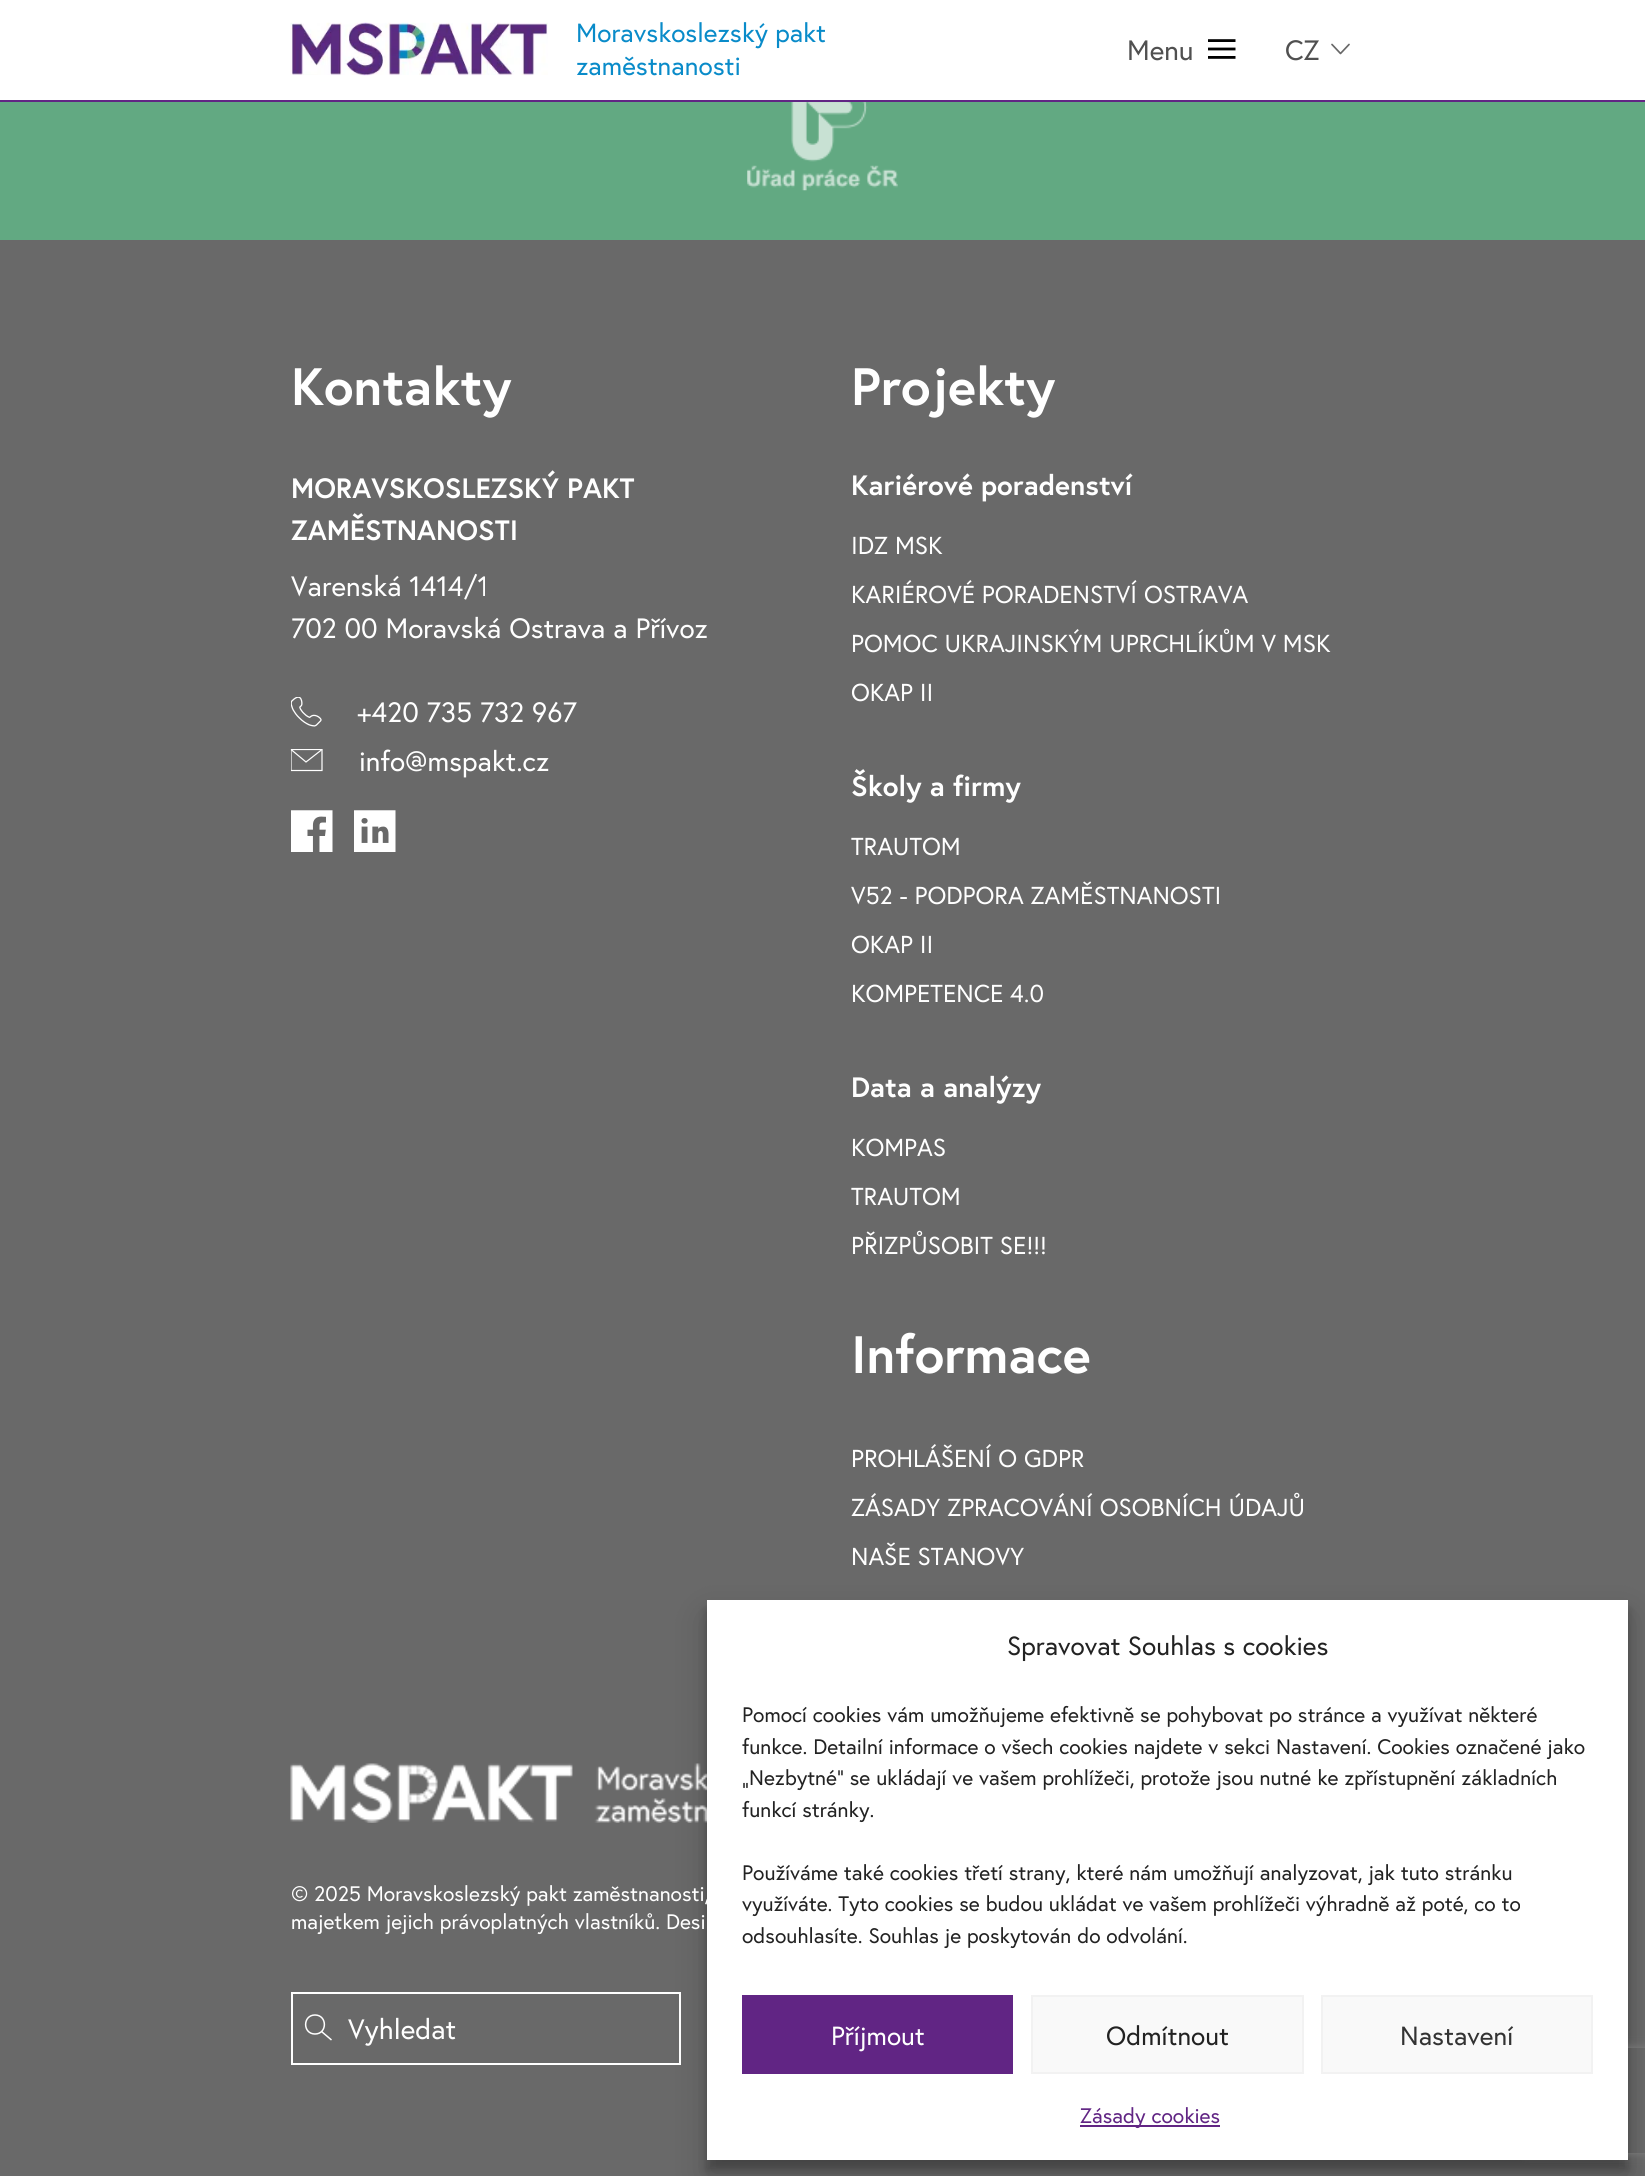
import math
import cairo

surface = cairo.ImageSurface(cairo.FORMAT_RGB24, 1645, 2176)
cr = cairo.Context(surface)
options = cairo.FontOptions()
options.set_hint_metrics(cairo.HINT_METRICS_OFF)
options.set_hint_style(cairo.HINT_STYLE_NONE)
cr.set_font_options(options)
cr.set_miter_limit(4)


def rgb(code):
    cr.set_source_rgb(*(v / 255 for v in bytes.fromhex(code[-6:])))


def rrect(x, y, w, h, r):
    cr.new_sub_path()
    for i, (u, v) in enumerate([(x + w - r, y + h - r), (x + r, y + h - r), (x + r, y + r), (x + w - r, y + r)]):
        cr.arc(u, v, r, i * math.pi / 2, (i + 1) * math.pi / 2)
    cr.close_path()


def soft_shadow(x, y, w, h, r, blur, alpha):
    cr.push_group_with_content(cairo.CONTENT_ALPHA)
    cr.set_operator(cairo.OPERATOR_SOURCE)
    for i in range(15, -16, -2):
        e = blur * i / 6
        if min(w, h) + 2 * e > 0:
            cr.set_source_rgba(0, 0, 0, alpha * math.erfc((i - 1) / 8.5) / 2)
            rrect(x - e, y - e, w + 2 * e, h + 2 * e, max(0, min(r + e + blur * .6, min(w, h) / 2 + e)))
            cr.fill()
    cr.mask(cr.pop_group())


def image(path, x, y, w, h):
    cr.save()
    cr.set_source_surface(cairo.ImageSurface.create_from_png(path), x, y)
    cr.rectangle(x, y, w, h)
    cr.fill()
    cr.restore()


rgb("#62a982")
cr.paint()
rgb("#612584")
cr.rectangle(0, 100, 1645, 2)
cr.fill()
rgb("#ffffff")
cr.rectangle(0, 0, 1645, 100)
cr.fill()
image("img/1.png", 290, 22, 258, 54)
image("img/2.png", 1208, 39, 28, 20)
cr.new_path()
cr.move_to(1349, 44.5)
cr.line_to(1340.5, 53.5)
cr.line_to(1332, 44.5)
rgb("#686868")
cr.set_line_width(1.7)
cr.set_line_cap(cairo.LINE_CAP_ROUND)
cr.set_line_join(cairo.LINE_JOIN_ROUND)
cr.stroke()
image("img/3.png", 747, 102, 151, 89)
rgb("#696969")
cr.rectangle(0, 240, 1645, 1936)
cr.fill()
image("img/4.png", 291, 697, 31, 30)
cr.save()
cr.rectangle(291, 749, 33, 23)
cr.clip()
cr.new_path()
cr.move_to(291, 749.5)
cr.line_to(322, 749.5)
cr.line_to(322, 770.5)
cr.line_to(291, 770.5)
cr.close_path()
rgb("#ffffff")
cr.set_line_width(1.2)
cr.set_line_cap(cairo.LINE_CAP_BUTT)
cr.set_line_join(cairo.LINE_JOIN_MITER)
cr.stroke()
cr.restore()
cr.new_path()
cr.move_to(291, 749.5)
cr.line_to(306, 762)
cr.line_to(322, 749.5)
rgb("#ffffff")
cr.set_line_width(1.2)
cr.set_line_cap(cairo.LINE_CAP_BUTT)
cr.set_line_join(cairo.LINE_JOIN_MITER)
cr.stroke()
image("img/5.png", 291, 810, 42, 42)
image("img/6.png", 354, 810, 42, 42)
image("img/7.png", 290, 1763, 417, 60)
cr.rectangle(292, 1993, 388, 71)
cr.set_line_width(2)
cr.stroke()
cr.new_path()
cr.move_to(315, 2034)
cr.curve_to(327.5, 2034, 327.5, 2015, 315, 2015)
cr.curve_to(302.5, 2015, 302.5, 2034, 315, 2034)
cr.close_path()
cr.move_to(331.5, 2040)
cr.line_to(321.5, 2031.5)
cr.set_line_width(1.5)
cr.stroke()
rgb("#000000")
soft_shadow(707, 1610, 921, 560, 0, 5, 0.23)
soft_shadow(707, 1617, 921, 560, 0, 17.5, 0.19)
cr.save()
cr.set_fill_rule(cairo.FILL_RULE_EVEN_ODD)
cr.new_path()
cr.move_to(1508, 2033)
cr.line_to(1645, 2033)
cr.line_to(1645, 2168)
cr.line_to(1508, 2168)
cr.close_path()
cr.move_to(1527, 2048)
cr.line_to(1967, 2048)
cr.curve_to(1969, 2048, 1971, 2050, 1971, 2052)
cr.line_to(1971, 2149)
cr.curve_to(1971, 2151, 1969, 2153, 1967, 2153)
cr.line_to(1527, 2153)
cr.curve_to(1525, 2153, 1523, 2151, 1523, 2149)
cr.line_to(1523, 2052)
cr.curve_to(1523, 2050, 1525, 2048, 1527, 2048)
cr.close_path()
cr.clip()
rgb("#808080")
soft_shadow(1523, 2048, 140, 105, 4, 4.5, 1)
cr.restore()
rgb("#ffffff")
cr.rectangle(707, 1600, 921, 560)
cr.fill()
rgb("#612584")
cr.rectangle(742, 1995, 271, 79)
cr.fill()
rgb("#f9f9f9")
cr.rectangle(1032, 1996, 271, 77)
cr.fill_preserve()
rgb("#f2f2f2")
cr.set_line_width(2)
cr.stroke()
rgb("#f9f9f9")
cr.rectangle(1322, 1996, 270, 77)
cr.fill_preserve()
rgb("#f2f2f2")
cr.stroke()
rgb("#612584")
cr.rectangle(1080, 2125, 140, 2)
cr.fill()
cr.select_font_face("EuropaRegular")
cr.set_font_size(26.25)
rgb("#098bc9")
cr.move_to(576, 42)
cr.show_text("Moravskoslezský pakt")
cr.move_to(576, 75)
cr.show_text("zaměstnanosti")
cr.set_font_size(28)
rgb("#505050")
cr.move_to(1127, 60)
cr.show_text("Menu")
cr.move_to(1285, 60)
cr.show_text("CZ")
cr.select_font_face("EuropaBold", cairo.FONT_SLANT_NORMAL, cairo.FONT_WEIGHT_BOLD)
cr.set_font_size(52.5)
rgb("#ffffff")
cr.move_to(291, 405)
cr.show_text("Kontakty")
cr.set_font_size(28)
cr.move_to(291, 498)
cr.show_text("MORAVSKOSLEZSKÝ PAKT")
cr.move_to(291, 540)
cr.show_text("ZAMĚSTNANOSTI")
cr.select_font_face("EuropaRegular")
for x, y, s in [
    (291, 596, "Varenská 1414/1"),
    (291, 638, "702 00 Moravská Ostrava a Přívoz"),
    (357, 722, "+420 735 732 967"),
    (359, 771, "info@mspakt.cz"),
]:
    cr.move_to(x, y)
    cr.show_text(s)
cr.select_font_face("EuropaBold", cairo.FONT_SLANT_NORMAL, cairo.FONT_WEIGHT_BOLD)
cr.set_font_size(52.5)
cr.move_to(851, 405)
cr.show_text("Projekty")
cr.set_font_size(28)
cr.move_to(851, 495)
cr.show_text("Kariérové poradenství")
cr.select_font_face("EuropaRegular")
cr.set_font_size(24.5)
for x, y, s in [
    (851, 554, "IDZ MSK"),
    (851, 603, "KARIÉROVÉ PORADENSTVÍ OSTRAVA"),
    (851, 652, "POMOC UKRAJINSKÝM UPRCHLÍKŮM V MSK"),
    (851, 701, "OKAP II"),
]:
    cr.move_to(x, y)
    cr.show_text(s)
cr.select_font_face("EuropaBold", cairo.FONT_SLANT_NORMAL, cairo.FONT_WEIGHT_BOLD)
cr.set_font_size(28)
cr.move_to(851, 796)
cr.show_text("Školy a firmy")
cr.select_font_face("EuropaRegular")
cr.set_font_size(24.5)
for x, y, s in [
    (851, 855, "TRAUTOM"),
    (851, 904, "V52 - PODPORA ZAMĚSTNANOSTI"),
    (851, 953, "OKAP II"),
    (851, 1002, "KOMPETENCE 4.0"),
]:
    cr.move_to(x, y)
    cr.show_text(s)
cr.select_font_face("EuropaBold", cairo.FONT_SLANT_NORMAL, cairo.FONT_WEIGHT_BOLD)
cr.set_font_size(28)
cr.move_to(851, 1097)
cr.show_text("Data a analýzy")
cr.select_font_face("EuropaRegular")
cr.set_font_size(24.5)
for x, y, s in [
    (851, 1156, "KOMPAS"),
    (851, 1205, "TRAUTOM"),
    (851, 1254, "PŘIZPŮSOBIT SE!!!"),
]:
    cr.move_to(x, y)
    cr.show_text(s)
cr.select_font_face("EuropaBold", cairo.FONT_SLANT_NORMAL, cairo.FONT_WEIGHT_BOLD)
cr.set_font_size(52.5)
cr.move_to(851, 1373)
cr.show_text("Informace")
cr.select_font_face("EuropaRegular")
cr.set_font_size(24.5)
for x, y, s in [
    (851, 1467, "PROHLÁŠENÍ O GDPR"),
    (851, 1516, "ZÁSADY ZPRACOVÁNÍ OSOBNÍCH ÚDAJŮ"),
    (851, 1565, "NAŠE STANOVY"),
]:
    cr.move_to(x, y)
    cr.show_text(s)
cr.set_font_size(21)
cr.move_to(291, 1901)
cr.show_text("© 2025 Moravskoslezský pakt zaměstnanosti,")
cr.move_to(291, 1929)
cr.show_text("majetkem jejich právoplatných vlastníků. Desi")
cr.set_font_size(28)
cr.move_to(348, 2039)
cr.show_text("Vyhledat")
cr.set_font_size(26.25)
rgb("#222222")
cr.move_to(1007, 1655)
cr.show_text("Spravovat Souhlas s cookies")
cr.set_font_size(21)
for x, y, s in [
    (742, 1722, "Pomocí cookies vám umožňujeme efektivně se pohybovat po stránce a využívat některé"),
    (742, 1754, "funkce. Detailní informace o všech cookies najdete v sekci Nastavení. Cookies označené jako"),
    (742, 1785, "„Nezbytné“ se ukládají ve vašem prohlížeči, protože jsou nutné ke zpřístupnění základních"),
    (742, 1817, "funkcí stránky."),
    (742, 1880, "Používáme také cookies třetí strany, které nám umožňují analyzovat, jak tuto stránku"),
    (742, 1911, "využíváte. Tyto cookies se budou ukládat ve vašem prohlížeči výhradně až poté, co to"),
    (742, 1943, "odsouhlasíte. Souhlas je poskytován do odvolání."),
]:
    cr.move_to(x, y)
    cr.show_text(s)
cr.set_font_size(26.25)
rgb("#ffffff")
cr.move_to(831, 2045)
cr.show_text("Příjmout")
rgb("#222222")
cr.move_to(1106, 2045)
cr.show_text("Odmítnout")
rgb("#333333")
cr.move_to(1400, 2045)
cr.show_text("Nastavení")
cr.set_font_size(21)
rgb("#612584")
cr.move_to(1080, 2123)
cr.show_text("Zásady cookies")
surface.write_to_png("page.png")
